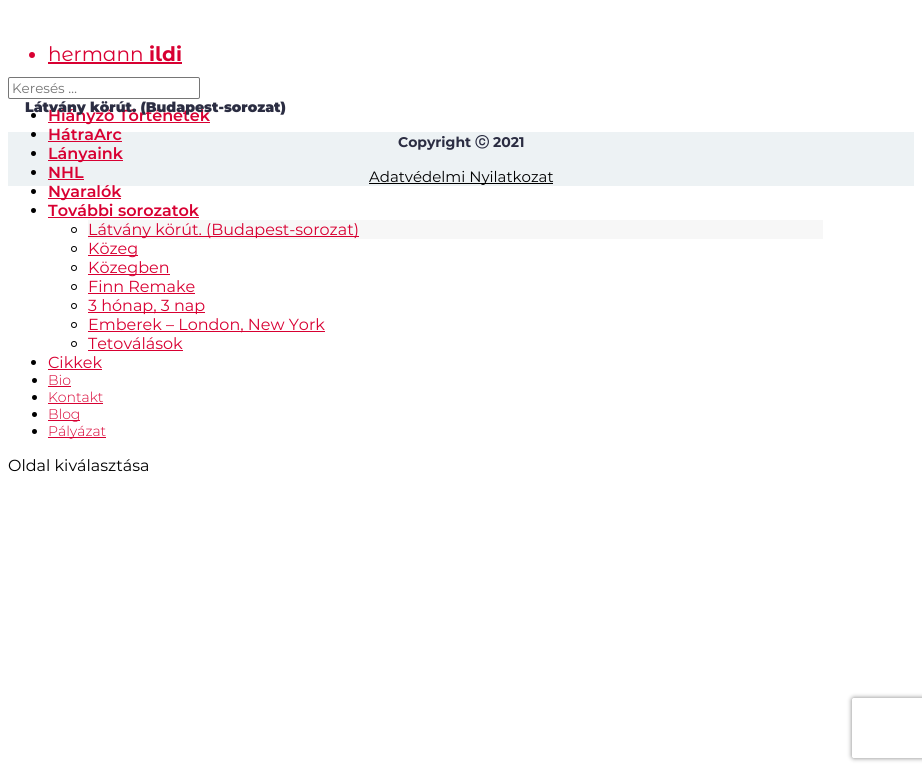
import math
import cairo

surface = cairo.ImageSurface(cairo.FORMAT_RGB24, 922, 772)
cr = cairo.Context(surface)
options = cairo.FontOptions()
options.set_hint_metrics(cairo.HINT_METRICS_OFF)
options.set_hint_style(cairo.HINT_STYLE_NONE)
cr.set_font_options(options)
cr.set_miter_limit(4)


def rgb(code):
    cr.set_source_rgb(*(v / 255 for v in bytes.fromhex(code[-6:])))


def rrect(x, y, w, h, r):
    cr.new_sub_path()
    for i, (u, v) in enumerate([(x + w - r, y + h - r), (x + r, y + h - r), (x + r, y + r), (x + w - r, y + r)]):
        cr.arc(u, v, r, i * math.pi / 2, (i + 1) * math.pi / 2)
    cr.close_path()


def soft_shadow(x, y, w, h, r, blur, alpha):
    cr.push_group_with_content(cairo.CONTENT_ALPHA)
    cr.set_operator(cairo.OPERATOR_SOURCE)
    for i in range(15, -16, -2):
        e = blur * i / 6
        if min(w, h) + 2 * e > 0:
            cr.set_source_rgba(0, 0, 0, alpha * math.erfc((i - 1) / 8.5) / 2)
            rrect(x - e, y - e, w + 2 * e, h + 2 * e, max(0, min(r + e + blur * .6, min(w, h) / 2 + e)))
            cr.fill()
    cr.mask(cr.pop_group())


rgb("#ffffff")
cr.paint()
rgb("#d80032")
cr.arc(32, 55, 3, 0, 2 * math.pi)
cr.fill()
cr.rectangle(48, 62, 134, 2)
cr.fill()
rgb("#000000")
cr.arc(33.5, 115.5, 2.5, 0, 2 * math.pi)
cr.fill()
rgb("#d80032")
cr.rectangle(48, 122, 162, 1)
cr.fill()
rgb("#edf2f4")
cr.rectangle(8, 132, 906, 54)
cr.fill()
rgb("#000000")
cr.arc(33.5, 134.5, 2.5, 0, 2 * math.pi)
cr.fill()
rgb("#d80032")
cr.rectangle(48, 141, 74, 1)
cr.fill()
rgb("#000000")
cr.arc(33.5, 153.5, 2.5, 0, 2 * math.pi)
cr.fill()
rgb("#d80032")
cr.rectangle(48, 160, 75, 1)
cr.fill()
rgb("#000000")
cr.arc(33.5, 172.5, 2.5, 0, 2 * math.pi)
cr.fill()
rgb("#d80032")
cr.rectangle(48, 179, 36, 1)
cr.fill()
rgb("#000000")
cr.arc(33.5, 191.5, 2.5, 0, 2 * math.pi)
cr.fill()
rgb("#d80032")
cr.rectangle(48, 198, 73, 1)
cr.fill()
rgb("#000000")
cr.arc(33.5, 210.5, 2.5, 0, 2 * math.pi)
cr.fill()
rgb("#d80032")
cr.rectangle(48, 217, 151, 1)
cr.fill()
rgb("#f7f7f7")
cr.rectangle(88, 220, 735, 19)
cr.fill()
cr.arc(74, 230, 2.5, 0, 2 * math.pi)
rgb("#000000")
cr.set_line_width(1)
cr.stroke()
rgb("#d80032")
cr.rectangle(88, 236, 271, 1)
cr.fill()
cr.arc(74, 249, 2.5, 0, 2 * math.pi)
rgb("#000000")
cr.stroke()
rgb("#d80032")
cr.rectangle(88, 255, 50, 1)
cr.fill()
cr.arc(74, 268, 2.5, 0, 2 * math.pi)
rgb("#000000")
cr.stroke()
rgb("#d80032")
cr.rectangle(88, 274, 82, 1)
cr.fill()
cr.arc(74, 287, 2.5, 0, 2 * math.pi)
rgb("#000000")
cr.stroke()
rgb("#d80032")
cr.rectangle(88, 293, 107, 1)
cr.fill()
cr.arc(74, 306, 2.5, 0, 2 * math.pi)
rgb("#000000")
cr.stroke()
rgb("#d80032")
cr.rectangle(88, 312, 117, 1)
cr.fill()
cr.arc(74, 325, 2.5, 0, 2 * math.pi)
rgb("#000000")
cr.stroke()
rgb("#d80032")
cr.rectangle(88, 331, 237, 1)
cr.fill()
cr.arc(74, 344, 2.5, 0, 2 * math.pi)
rgb("#000000")
cr.stroke()
rgb("#d80032")
cr.rectangle(88, 350, 95, 1)
cr.fill()
rgb("#000000")
cr.arc(33.5, 362.5, 2.5, 0, 2 * math.pi)
cr.fill()
rgb("#d80032")
cr.rectangle(48, 369, 54, 1)
cr.fill()
rgb("#000000")
cr.arc(34.5, 380.5, 2.5, 0, 2 * math.pi)
cr.fill()
rgb("#d80032")
cr.rectangle(48, 386, 23, 1)
cr.fill()
rgb("#000000")
cr.arc(34.5, 397.5, 2.5, 0, 2 * math.pi)
cr.fill()
rgb("#d80032")
cr.rectangle(48, 403, 55, 1)
cr.fill()
rgb("#000000")
cr.arc(34.5, 414.5, 2.5, 0, 2 * math.pi)
cr.fill()
rgb("#d80032")
cr.rectangle(48, 420, 32, 1)
cr.fill()
rgb("#000000")
cr.arc(34.5, 431.5, 2.5, 0, 2 * math.pi)
cr.fill()
rgb("#d80032")
cr.rectangle(48, 437, 58, 1)
cr.fill()
rrect(8.5, 77.5, 191, 21, 1.5)
rgb("#767676")
cr.stroke()
rgb("#000000")
cr.rectangle(369, 183, 184, 1)
cr.fill()
cr.save()
cr.set_fill_rule(cairo.FILL_RULE_EVEN_ODD)
cr.new_path()
cr.move_to(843, 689)
cr.line_to(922, 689)
cr.line_to(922, 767)
cr.line_to(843, 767)
cr.close_path()
cr.move_to(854, 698)
cr.line_to(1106, 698)
cr.curve_to(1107, 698, 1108, 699, 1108, 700)
cr.line_to(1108, 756)
cr.curve_to(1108, 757, 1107, 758, 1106, 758)
cr.line_to(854, 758)
cr.curve_to(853, 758, 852, 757, 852, 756)
cr.line_to(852, 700)
cr.curve_to(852, 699, 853, 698, 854, 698)
cr.close_path()
cr.clip()
rgb("#808080")
soft_shadow(852, 698, 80, 60, 2, 2.5, 1)
cr.restore()
cr.select_font_face("Montserrat Alternates")
cr.set_font_size(20)
rgb("#d80032")
cr.move_to(48, 61)
cr.show_text("hermann")
cr.select_font_face("Montserrat Alternates", cairo.FONT_SLANT_NORMAL, cairo.FONT_WEIGHT_BOLD)
cr.move_to(149, 61)
cr.show_text("ildi")
cr.select_font_face("Montserrat SemiBold")
cr.set_font_size(16)
for x, y, s in [
    (48, 121, "Hiányzó Történetek"),
    (48, 140, "HátraArc"),
    (48, 159, "Lányaink"),
    (48, 178, "NHL"),
    (48, 197, "Nyaralók"),
    (48, 216, "További sorozatok"),
]:
    cr.move_to(x, y)
    cr.show_text(s)
cr.select_font_face("Montserrat")
for x, y, s in [
    (88, 235, "Látvány körút. (Budapest-sorozat)"),
    (88, 254, "Közeg"),
    (88, 273, "Közegben"),
    (88, 292, "Finn Remake"),
    (88, 311, "3 hónap, 3 nap"),
    (88, 330, "Emberek – London, New York"),
    (88, 349, "Tetoválások"),
    (48, 368, "Cikkek"),
]:
    cr.move_to(x, y)
    cr.show_text(s)
cr.select_font_face("Montserrat Light")
cr.set_font_size(14)
for x, y, s in [
    (48, 385, "Bio"),
    (48, 402, "Kontakt"),
    (48, 419, "Blog"),
    (48, 436, "Pályázat"),
]:
    cr.move_to(x, y)
    cr.show_text(s)
cr.select_font_face("Montserrat")
cr.set_font_size(16)
rgb("#000000")
cr.move_to(8, 471)
cr.show_text("Oldal kiválasztása")
cr.set_font_size(13.5)
rgb("#757575")
cr.move_to(12, 93)
cr.show_text("Keresés …")
cr.select_font_face("Montserrat Black")
cr.set_font_size(14)
rgb("#2b2d42")
cr.move_to(25, 112)
cr.show_text("Látvány körút. (Budapest-sorozat)")
cr.select_font_face("Montserrat", cairo.FONT_SLANT_NORMAL, cairo.FONT_WEIGHT_BOLD)
cr.move_to(398, 147)
cr.show_text("Copyright")
cr.select_font_face("WenQuanYi Zen Hei", cairo.FONT_SLANT_NORMAL, cairo.FONT_WEIGHT_BOLD)
cr.move_to(475, 147)
cr.show_text("ⓒ")
cr.select_font_face("Montserrat", cairo.FONT_SLANT_NORMAL, cairo.FONT_WEIGHT_BOLD)
cr.move_to(493, 147)
cr.show_text("2021")
cr.select_font_face("Montserrat")
cr.set_font_size(15)
rgb("#000000")
cr.move_to(369, 182)
cr.show_text("Adatvédelmi Nyilatkozat")
surface.write_to_png("page.png")
